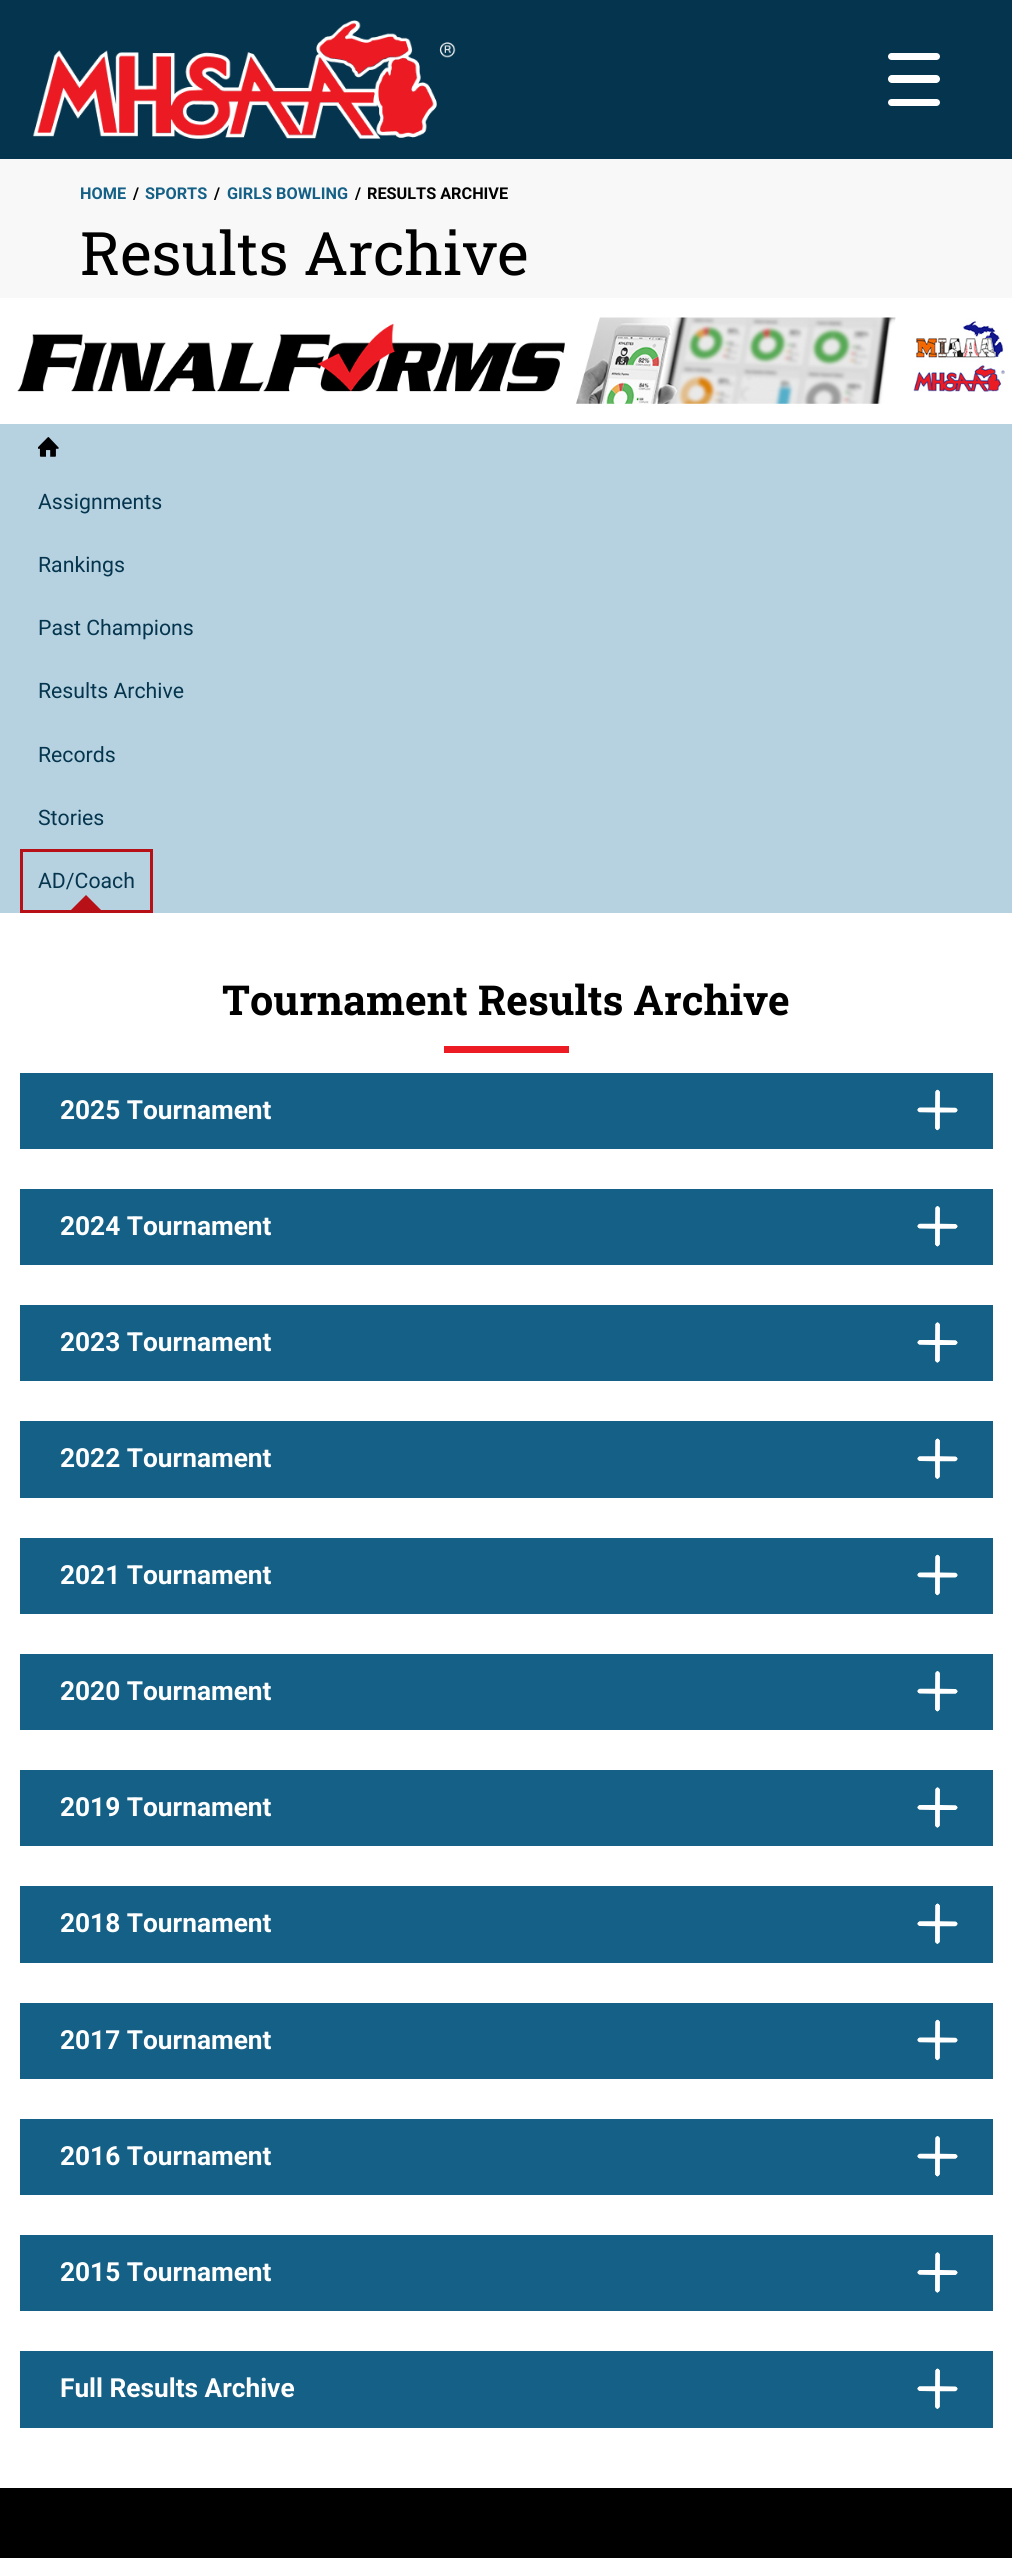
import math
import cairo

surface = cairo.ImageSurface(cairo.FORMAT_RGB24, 1012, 2558)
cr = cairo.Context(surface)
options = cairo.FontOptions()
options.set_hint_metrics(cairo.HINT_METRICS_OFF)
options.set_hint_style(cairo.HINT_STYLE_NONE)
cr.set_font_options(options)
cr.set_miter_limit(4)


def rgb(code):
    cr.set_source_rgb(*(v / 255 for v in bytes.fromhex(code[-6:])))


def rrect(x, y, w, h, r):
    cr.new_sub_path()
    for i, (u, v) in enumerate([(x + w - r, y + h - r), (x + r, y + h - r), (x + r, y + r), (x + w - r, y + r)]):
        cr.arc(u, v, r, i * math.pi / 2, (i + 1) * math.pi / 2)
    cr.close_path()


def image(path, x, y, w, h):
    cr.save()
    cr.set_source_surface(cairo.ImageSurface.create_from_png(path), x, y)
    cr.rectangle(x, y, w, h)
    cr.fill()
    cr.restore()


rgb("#ffffff")
cr.paint()
rgb("#05354e")
cr.rectangle(0, 0, 1012, 159)
cr.fill()
image("img/1.png", 32, 20, 424, 119)
rgb("#ffffff")
rrect(888, 53, 52, 7, 3.5)
cr.fill()
rrect(888, 75, 52, 8, 4)
cr.fill()
rrect(888, 99, 52, 7, 3.5)
cr.fill()
rgb("#f8f8f8")
cr.rectangle(0, 159, 1012, 139)
cr.fill()
image("img/2.png", 17, 317, 988, 87)
rgb("#b6d2e0")
cr.rectangle(0, 424, 1012, 489)
cr.fill()
image("img/3.png", 38, 437, 21, 20)
cr.rectangle(21.5, 850.5, 130, 61)
rgb("#b71117")
cr.set_line_width(3)
cr.stroke()
cr.new_path()
cr.move_to(101, 910)
cr.line_to(71, 910)
cr.line_to(86, 895)
cr.close_path()
cr.fill()
rgb("#ed1c24")
cr.rectangle(444, 1046, 125, 7)
cr.fill()
rgb("#156086")
cr.rectangle(20, 1073, 973, 76)
cr.fill()
image("img/4.png", 917, 1089, 41, 42)
cr.rectangle(20, 1189, 973, 76)
cr.fill()
image("img/5.png", 917, 1206, 41, 41)
cr.rectangle(20, 1305, 973, 76)
cr.fill()
image("img/6.png", 917, 1322, 41, 41)
cr.rectangle(20, 1421, 973, 77)
cr.fill()
image("img/7.png", 917, 1438, 41, 41)
cr.rectangle(20, 1538, 973, 76)
cr.fill()
image("img/4.png", 917, 1554, 41, 42)
cr.rectangle(20, 1654, 973, 76)
cr.fill()
image("img/5.png", 917, 1671, 41, 41)
cr.rectangle(20, 1770, 973, 76)
cr.fill()
image("img/6.png", 917, 1787, 41, 41)
cr.rectangle(20, 1886, 973, 77)
cr.fill()
image("img/7.png", 917, 1903, 41, 41)
cr.rectangle(20, 2003, 973, 76)
cr.fill()
image("img/8.png", 917, 2019, 41, 42)
cr.rectangle(20, 2119, 973, 76)
cr.fill()
image("img/5.png", 917, 2136, 41, 41)
cr.rectangle(20, 2235, 973, 76)
cr.fill()
image("img/9.png", 917, 2252, 41, 41)
cr.rectangle(20, 2351, 973, 77)
cr.fill()
image("img/7.png", 917, 2368, 41, 41)
rgb("#000000")
cr.rectangle(0, 2488, 1012, 70)
cr.fill()
cr.select_font_face("Roboto", cairo.FONT_SLANT_NORMAL, cairo.FONT_WEIGHT_BOLD)
cr.set_font_size(16.25)
rgb("#156086")
cr.move_to(80, 199)
cr.show_text("HOME")
rgb("#000000")
cr.move_to(133, 199)
cr.show_text("/")
rgb("#156086")
cr.move_to(145, 199)
cr.show_text("SPORTS")
rgb("#000000")
cr.move_to(214, 199)
cr.show_text("/")
rgb("#156086")
cr.move_to(227, 199)
cr.show_text("GIRLS BOWLING")
rgb("#000000")
cr.move_to(355, 199)
cr.show_text("/")
cr.move_to(367, 199)
cr.show_text("RESULTS ARCHIVE")
cr.select_font_face("Roboto Slab")
cr.set_font_size(60)
cr.move_to(80, 275)
cr.show_text("Results Archive")
cr.select_font_face("Roboto")
cr.set_font_size(21.25)
rgb("#05354e")
for x, y, s in [
    (38, 509, "Assignments"),
    (38, 572, "Rankings"),
    (38, 635, "Past Champions"),
    (38, 698, "Results Archive"),
    (38, 762, "Records"),
    (38, 825, "Stories"),
    (38, 888, "AD/Coach"),
]:
    cr.move_to(x, y)
    cr.show_text(s)
cr.select_font_face("Roboto Slab", cairo.FONT_SLANT_NORMAL, cairo.FONT_WEIGHT_BOLD)
cr.set_font_size(41.25)
rgb("#000000")
cr.move_to(222, 1015)
cr.show_text("Tournament Results Archive")
cr.select_font_face("Roboto", cairo.FONT_SLANT_NORMAL, cairo.FONT_WEIGHT_BOLD)
cr.set_font_size(26.25)
rgb("#ffffff")
for x, y, s in [
    (60, 1119, "2025 Tournament"),
    (60, 1235, "2024 Tournament"),
    (60, 1351, "2023 Tournament"),
    (60, 1467, "2022 Tournament"),
    (60, 1584, "2021 Tournament"),
    (60, 1700, "2020 Tournament"),
    (60, 1816, "2019 Tournament"),
    (60, 1932, "2018 Tournament"),
    (60, 2049, "2017 Tournament"),
    (60, 2165, "2016 Tournament"),
    (60, 2281, "2015 Tournament"),
    (60, 2397, "Full Results Archive"),
]:
    cr.move_to(x, y)
    cr.show_text(s)
surface.write_to_png("page.png")
